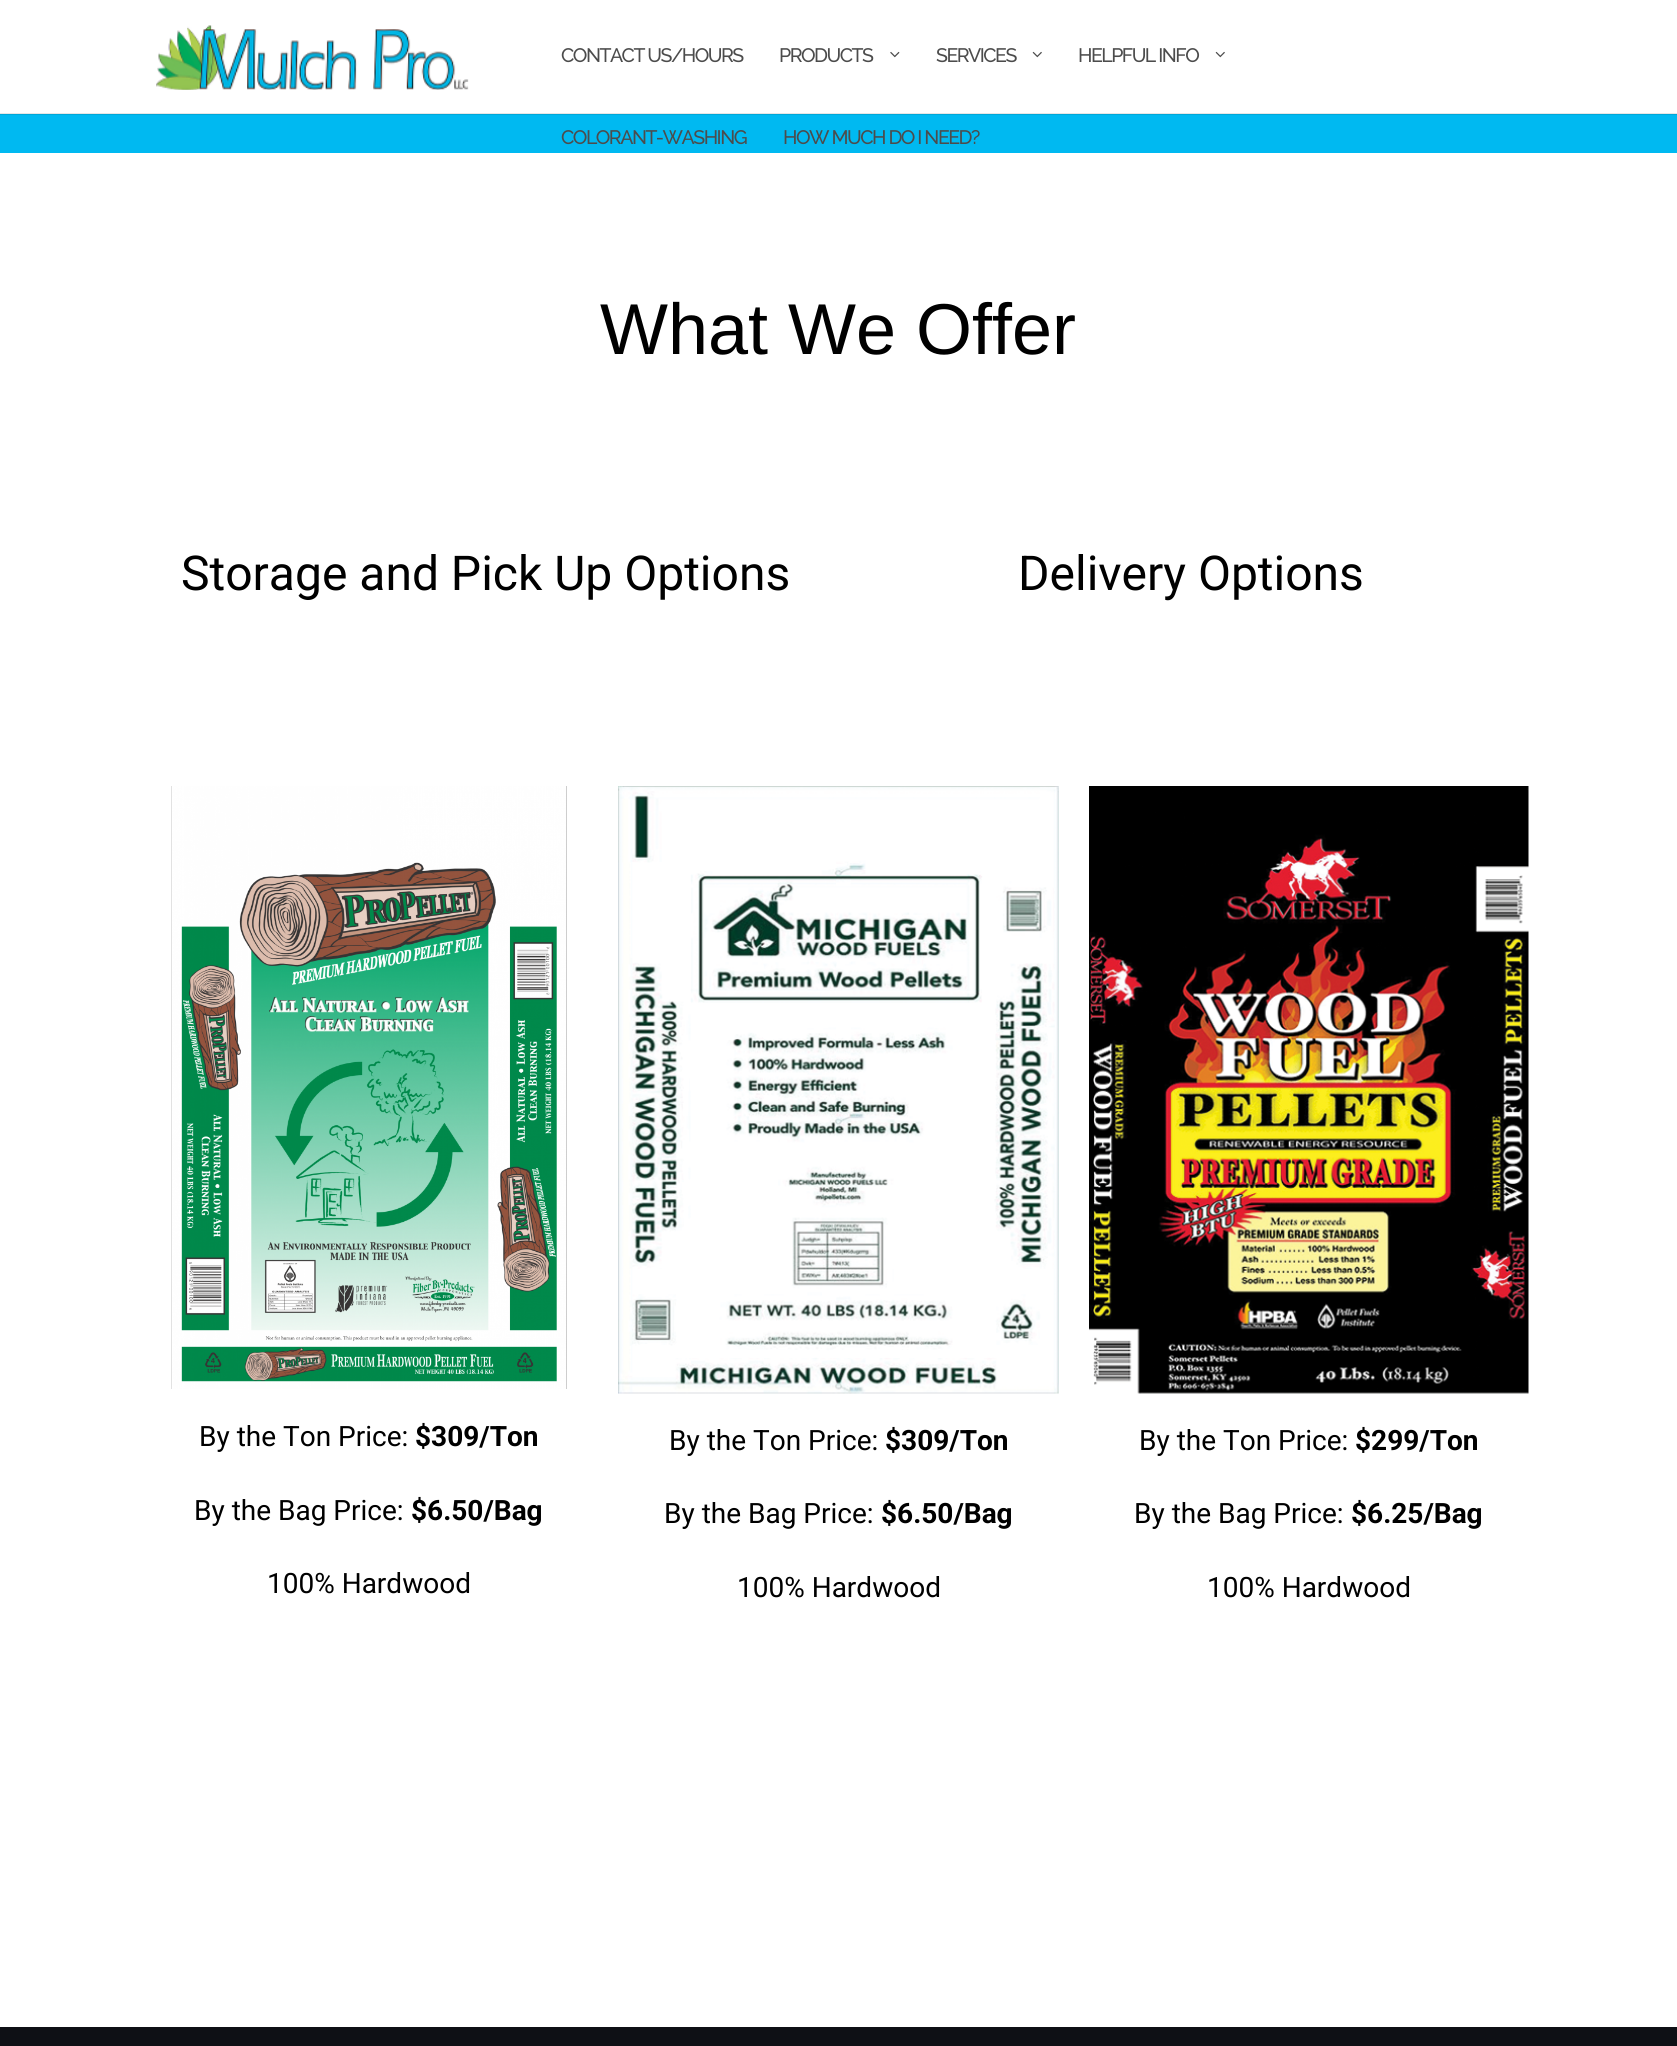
import math
import cairo

surface = cairo.ImageSurface(cairo.FORMAT_RGB24, 1677, 2046)
cr = cairo.Context(surface)
options = cairo.FontOptions()
options.set_hint_metrics(cairo.HINT_METRICS_OFF)
options.set_hint_style(cairo.HINT_STYLE_NONE)
cr.set_font_options(options)
cr.set_miter_limit(4)


def rgb(code):
    cr.set_source_rgb(*(v / 255 for v in bytes.fromhex(code[-6:])))


def tracked(x, y, s, letter, word):
    cr.move_to(x, y)
    for ch in s:
        cr.show_text(ch)
        cr.rel_move_to(letter + word * (ch == ' '), 0)


def image(path, x, y, w, h):
    cr.save()
    cr.set_source_surface(cairo.ImageSurface.create_from_png(path), x, y)
    cr.rectangle(x, y, w, h)
    cr.fill()
    cr.restore()


rgb("#ffffff")
cr.paint()
rgb("#e6e6e6")
cr.rectangle(0, 113, 1677, 1)
cr.fill()
image("img/1.png", 156, 25, 313, 65)
image("img/2.png", 890, 51, 10, 7)
image("img/3.png", 1032, 51, 10, 7)
image("img/3.png", 1215, 51, 10, 7)
rgb("#00b9f1")
cr.rectangle(0, 115, 1677, 38)
cr.fill()
rgb("#00a7d9")
cr.rectangle(0, 114, 1677, 1)
cr.fill()
image("img/4.png", 171, 786, 396, 603)
image("img/5.png", 618, 786, 441, 608)
image("img/6.png", 1089, 786, 440, 608)
rgb("#0e1015")
cr.rectangle(0, 2027, 1677, 19)
cr.fill()
cr.select_font_face("Raleway Medium")
cr.set_font_size(19.5)
rgb("#4c4c4c")
for x, y, s in [
    (561, 62, "CONTACT US/HOURS"),
    (779, 62, "PRODUCTS"),
    (936, 62, "SERVICES"),
    (1078, 62, "HELPFUL INFO"),
    (561, 144, "COLORANT-WASHING"),
    (783, 144, "HOW MUCH DO I NEED?"),
]:
    tracked(x, y, s, -1.5, 0)
cr.select_font_face("Liberation Sans")
cr.set_font_size(72)
rgb("#000000")
cr.move_to(600, 354)
cr.show_text("What We Offer")
cr.select_font_face("Roboto")
cr.set_font_size(48)
cr.move_to(181, 590)
cr.show_text("Storage and Pick Up Options")
cr.move_to(1018, 590)
cr.show_text("Delivery Options")
cr.set_font_size(28)
cr.move_to(199, 1446)
cr.show_text("By the Ton Price:")
cr.select_font_face("Roboto", cairo.FONT_SLANT_NORMAL, cairo.FONT_WEIGHT_BOLD)
cr.move_to(415, 1446)
cr.show_text("$309/Ton")
cr.select_font_face("Roboto")
cr.move_to(194, 1520)
cr.show_text("By the Bag Price:")
cr.select_font_face("Roboto", cairo.FONT_SLANT_NORMAL, cairo.FONT_WEIGHT_BOLD)
cr.move_to(411, 1520)
cr.show_text("$6.50/Bag")
cr.select_font_face("Roboto")
cr.move_to(267, 1593)
cr.show_text("100% Hardwood")
cr.move_to(669, 1450)
cr.show_text("By the Ton Price:")
cr.select_font_face("Roboto", cairo.FONT_SLANT_NORMAL, cairo.FONT_WEIGHT_BOLD)
cr.move_to(885, 1450)
cr.show_text("$309/Ton")
cr.select_font_face("Roboto")
cr.move_to(664, 1523)
cr.show_text("By the Bag Price:")
cr.select_font_face("Roboto", cairo.FONT_SLANT_NORMAL, cairo.FONT_WEIGHT_BOLD)
cr.move_to(881, 1523)
cr.show_text("$6.50/Bag")
cr.select_font_face("Roboto")
cr.move_to(737, 1597)
cr.show_text("100% Hardwood")
cr.move_to(1139, 1450)
cr.show_text("By the Ton Price:")
cr.select_font_face("Roboto", cairo.FONT_SLANT_NORMAL, cairo.FONT_WEIGHT_BOLD)
cr.move_to(1355, 1450)
cr.show_text("$299/Ton")
cr.select_font_face("Roboto")
cr.move_to(1134, 1523)
cr.show_text("By the Bag Price:")
cr.select_font_face("Roboto", cairo.FONT_SLANT_NORMAL, cairo.FONT_WEIGHT_BOLD)
cr.move_to(1351, 1523)
cr.show_text("$6.25/Bag")
cr.select_font_face("Roboto")
cr.move_to(1207, 1597)
cr.show_text("100% Hardwood")
surface.write_to_png("page.png")
